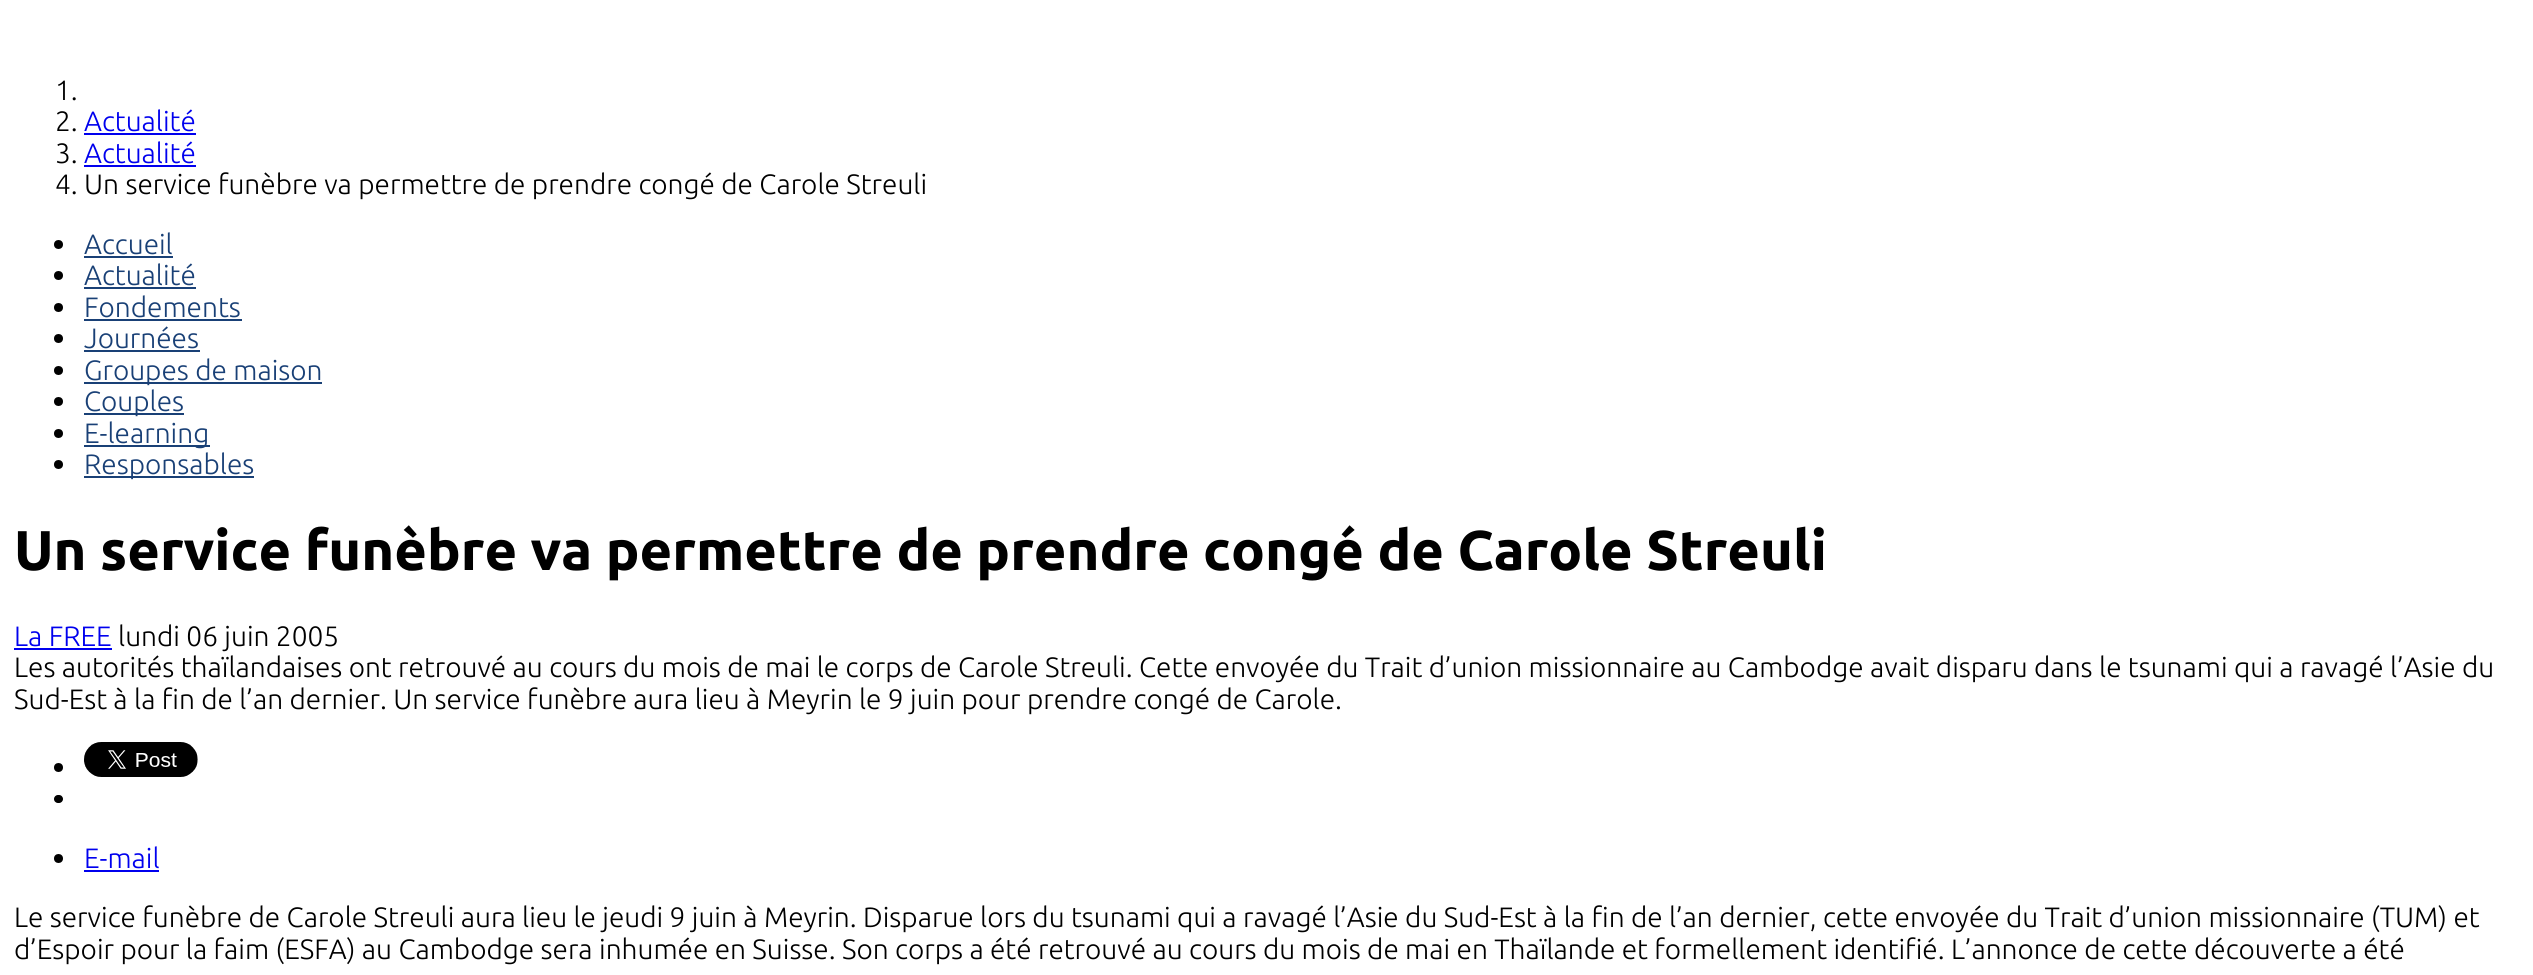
import math
import cairo

surface = cairo.ImageSurface(cairo.FORMAT_RGB24, 2533, 975)
cr = cairo.Context(surface)
options = cairo.FontOptions()
options.set_hint_metrics(cairo.HINT_METRICS_OFF)
options.set_hint_style(cairo.HINT_STYLE_NONE)
cr.set_font_options(options)
cr.set_miter_limit(4)


def rgb(code):
    cr.set_source_rgb(*(v / 255 for v in bytes.fromhex(code[-6:])))


def rrect(x, y, w, h, r):
    cr.new_sub_path()
    for i, (u, v) in enumerate([(x + w - r, y + h - r), (x + r, y + h - r), (x + r, y + r), (x + w - r, y + r)]):
        cr.arc(u, v, r, i * math.pi / 2, (i + 1) * math.pi / 2)
    cr.close_path()


def image(path, x, y, w, h):
    cr.save()
    cr.set_source_surface(cairo.ImageSurface.create_from_png(path), x, y)
    cr.rectangle(x, y, w, h)
    cr.fill()
    cr.restore()


rgb("#ffffff")
cr.paint()
rgb("#0000ee")
cr.rectangle(84, 133, 112, 2)
cr.fill()
cr.rectangle(84, 165, 112, 2)
cr.fill()
rgb("#000000")
cr.arc(58.5, 244.5, 4.5, 0, 2 * math.pi)
cr.fill()
rgb("#194076")
cr.rectangle(84, 256, 89, 2)
cr.fill()
rgb("#000000")
cr.arc(58.5, 275.5, 4.5, 0, 2 * math.pi)
cr.fill()
rgb("#194076")
cr.rectangle(84, 287, 112, 2)
cr.fill()
rgb("#000000")
cr.arc(58.5, 307.5, 4.5, 0, 2 * math.pi)
cr.fill()
rgb("#194076")
cr.rectangle(84, 319, 158, 2)
cr.fill()
rgb("#000000")
cr.arc(58.5, 338.5, 4.5, 0, 2 * math.pi)
cr.fill()
rgb("#194076")
cr.rectangle(84, 350, 116, 2)
cr.fill()
rgb("#000000")
cr.arc(58.5, 370.5, 4.5, 0, 2 * math.pi)
cr.fill()
rgb("#194076")
cr.rectangle(84, 382, 238, 2)
cr.fill()
rgb("#000000")
cr.arc(58.5, 401.5, 4.5, 0, 2 * math.pi)
cr.fill()
rgb("#194076")
cr.rectangle(84, 413, 100, 2)
cr.fill()
rgb("#000000")
cr.arc(58.5, 433.5, 4.5, 0, 2 * math.pi)
cr.fill()
rgb("#194076")
cr.rectangle(84, 445, 126, 2)
cr.fill()
rgb("#000000")
cr.arc(58.5, 464.5, 4.5, 0, 2 * math.pi)
cr.fill()
rgb("#194076")
cr.rectangle(84, 476, 170, 2)
cr.fill()
rgb("#0000ee")
cr.rectangle(14, 648, 98, 2)
cr.fill()
rgb("#000000")
cr.arc(58.5, 767.5, 4.5, 0, 2 * math.pi)
cr.fill()
image("img/1.png", 84, 742, 114, 35)
rrect(54, 795, 9, 8, 4)
cr.fill()
cr.arc(58.5, 858.5, 4.5, 0, 2 * math.pi)
cr.fill()
rgb("#0000ee")
cr.rectangle(84, 870, 75, 2)
cr.fill()
cr.select_font_face("Ubuntu Light")
cr.set_font_size(28)
rgb("#000000")
cr.move_to(55, 100)
cr.show_text("1.")
cr.move_to(55, 131)
cr.show_text("2.")
rgb("#0000ee")
cr.move_to(84, 131)
cr.show_text("Actualité")
rgb("#000000")
cr.move_to(55, 163)
cr.show_text("3.")
rgb("#0000ee")
cr.move_to(84, 163)
cr.show_text("Actualité")
rgb("#000000")
cr.move_to(55, 194)
cr.show_text("4. Un service funèbre va permettre de prendre congé de Carole Streuli")
rgb("#194076")
for x, y, s in [
    (84, 254, "Accueil"),
    (84, 285, "Actualité"),
    (84, 317, "Fondements"),
    (84, 348, "Journées"),
    (84, 380, "Groupes de maison"),
    (84, 411, "Couples"),
    (84, 443, "E-learning"),
    (84, 474, "Responsables"),
]:
    cr.move_to(x, y)
    cr.show_text(s)
cr.select_font_face("Ubuntu", cairo.FONT_SLANT_NORMAL, cairo.FONT_WEIGHT_BOLD)
cr.set_font_size(56)
rgb("#000000")
cr.move_to(14, 570)
cr.show_text("Un service funèbre va permettre de prendre congé de Carole Streuli")
cr.select_font_face("Ubuntu Light")
cr.set_font_size(28)
rgb("#0000ee")
cr.move_to(14, 646)
cr.show_text("La FREE")
rgb("#000000")
for x, y, s in [
    (118, 646, "lundi 06 juin 2005"),
    (14, 677, "Les autorités thaïlandaises ont retrouvé au cours du mois de mai le corps de Carole Streuli. Cette envoyée du Trait d’union missionnaire au Cambodge avait disparu dans le tsunami qui a ravagé l’Asie du"),
    (14, 709, "Sud-Est à la fin de l’an dernier. Un service funèbre aura lieu à Meyrin le 9 juin pour prendre congé de Carole."),
]:
    cr.move_to(x, y)
    cr.show_text(s)
rgb("#0000ee")
cr.move_to(84, 868)
cr.show_text("E-mail")
rgb("#000000")
cr.move_to(14, 927)
cr.show_text("Le service funèbre de Carole Streuli aura lieu le jeudi 9 juin à Meyrin. Disparue lors du tsunami qui a ravagé l’Asie du Sud-Est à la fin de l’an dernier, cette envoyée du Trait d’union missionnaire (TUM) et")
cr.move_to(14, 959)
cr.show_text("d’Espoir pour la faim (ESFA) au Cambodge sera inhumée en Suisse. Son corps a été retrouvé au cours du mois de mai en Thaïlande et formellement identifié. L’annonce de cette découverte a été")
surface.write_to_png("page.png")
